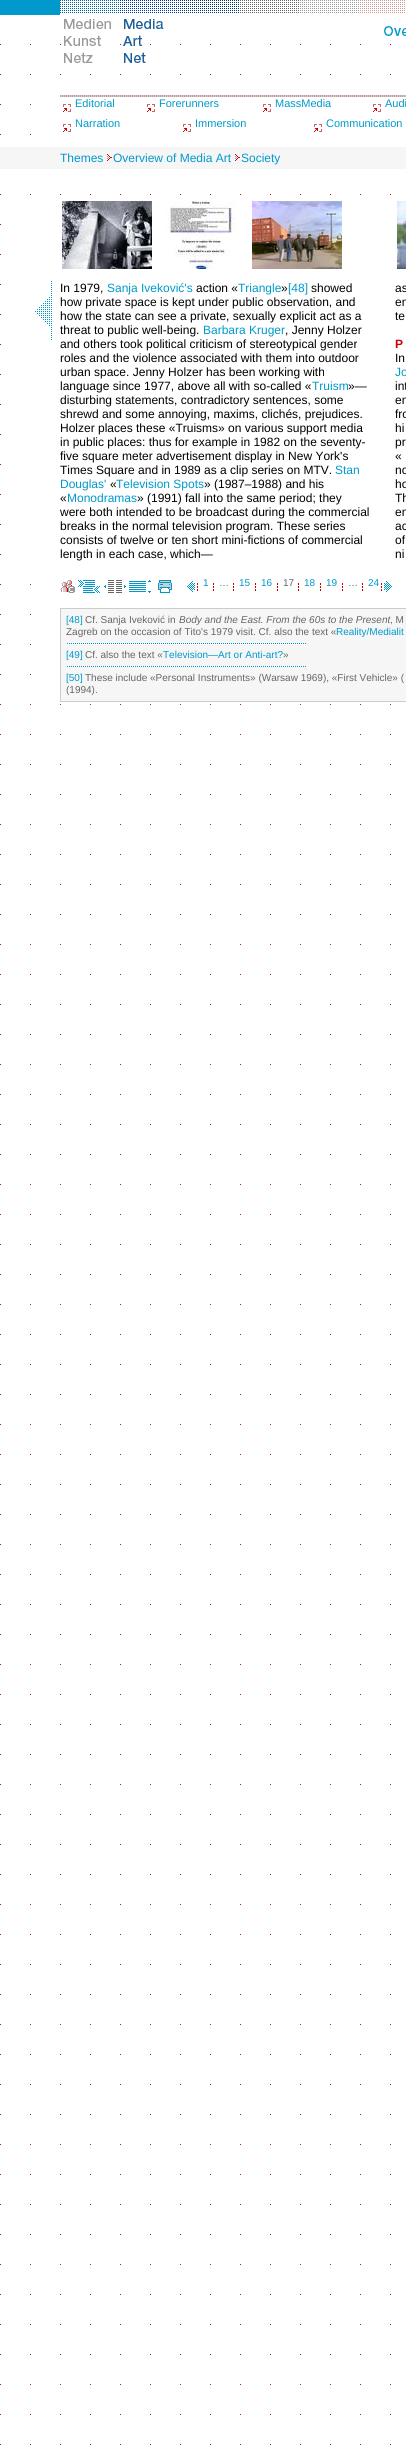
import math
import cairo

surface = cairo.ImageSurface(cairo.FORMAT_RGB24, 406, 2447)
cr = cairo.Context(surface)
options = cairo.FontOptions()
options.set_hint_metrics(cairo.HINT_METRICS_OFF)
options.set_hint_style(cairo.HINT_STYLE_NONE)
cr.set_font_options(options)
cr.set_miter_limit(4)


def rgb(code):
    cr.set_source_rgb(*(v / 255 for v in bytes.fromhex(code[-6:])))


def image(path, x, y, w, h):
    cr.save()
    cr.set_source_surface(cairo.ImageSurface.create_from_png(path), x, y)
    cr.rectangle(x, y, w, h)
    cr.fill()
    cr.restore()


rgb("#ffffff")
cr.paint()
image("img/1.png", 0, 44, 391, 2401)
rgb("#0099cc")
cr.rectangle(0, 0, 60, 15)
cr.fill()
image("img/2.png", 60, 0, 59, 13)
image("img/3.png", 120, 0, 59, 13)
image("img/4.png", 180, 0, 59, 13)
image("img/5.png", 240, 0, 59, 13)
image("img/6.png", 300, 0, 59, 13)
image("img/7.png", 360, 0, 45, 13)
image("img/8.png", 64, 19, 47, 44)
image("img/9.png", 123, 19, 41, 44)
image("img/10.png", 384, 26, 22, 10)
rgb("#ffffff")
cr.rectangle(60, 104, 331, 31)
cr.fill()
rgb("#cccccc")
cr.rectangle(60, 95, 346, 2)
cr.fill()
image("img/11.png", 60, 95, 345, 2)
image("img/12.png", 63, 104, 8, 8)
image("img/12.png", 147, 104, 8, 8)
image("img/12.png", 263, 104, 8, 8)
image("img/12.png", 373, 104, 8, 8)
image("img/12.png", 63, 124, 8, 8)
image("img/12.png", 183, 124, 8, 8)
image("img/12.png", 314, 124, 8, 8)
rgb("#f6f6f6")
cr.rectangle(0, 147, 406, 22)
cr.fill()
image("img/13.png", 107, 154, 5, 7)
image("img/13.png", 235, 154, 5, 7)
rgb("#ffffff")
cr.rectangle(30, 224, 361, 331)
cr.fill()
image("img/14.png", 62, 201, 90, 68)
image("img/15.png", 165, 201, 72, 68)
image("img/16.png", 252, 201, 90, 68)
image("img/17.png", 397, 201, 9, 68)
image("img/18.png", 35, 281, 17, 59)
cr.rectangle(60, 584, 331, 1)
cr.fill()
image("img/19.png", 61, 580, 14, 13)
image("img/20.png", 78, 580, 22, 13)
image("img/21.png", 104, 580, 22, 13)
image("img/22.png", 129, 580, 22, 13)
image("img/23.png", 158, 580, 14, 13)
image("img/24.png", 187, 581, 8, 11)
image("img/25.png", 197, 583, 1, 8)
image("img/25.png", 213, 583, 1, 8)
image("img/25.png", 233, 583, 1, 8)
image("img/25.png", 255, 583, 1, 8)
image("img/25.png", 277, 583, 1, 8)
image("img/25.png", 298, 583, 1, 8)
image("img/25.png", 320, 583, 1, 8)
image("img/25.png", 342, 583, 1, 8)
image("img/25.png", 362, 583, 1, 8)
image("img/25.png", 381, 583, 1, 8)
image("img/26.png", 384, 581, 8, 11)
rgb("#f6f6f6")
cr.rectangle(60.5, 608.5, 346, 93)
cr.fill_preserve()
rgb("#cccccc")
cr.set_line_width(1)
cr.stroke()
image("img/27.png", 67, 643, 239, 1)
image("img/27.png", 67, 666, 239, 1)
cr.select_font_face("Liberation Sans")
cr.set_font_size(11)
rgb("#0099cc")
for x, y, s in [
    (75, 107, "Editorial"),
    (159, 107, "Forerunners"),
    (275, 107, "MassMedia"),
    (385, 107, "Audi"),
    (75, 127, "Narration"),
    (195, 127, "Immersion"),
    (326, 127, "Communication"),
]:
    cr.move_to(x, y)
    cr.show_text(s)
cr.set_font_size(12)
for x, y, s in [
    (60, 162, "Themes"),
    (113, 162, "Overview of Media Art"),
    (241, 162, "Society"),
]:
    cr.move_to(x, y)
    cr.show_text(s)
rgb("#000000")
cr.move_to(60, 292)
cr.show_text("In 1979,")
rgb("#0099cc")
cr.move_to(107, 292)
cr.show_text("Sanja Iveković's")
rgb("#000000")
cr.move_to(196, 292)
cr.show_text("action «")
rgb("#0099cc")
cr.move_to(238, 292)
cr.show_text("Triangle")
rgb("#000000")
cr.move_to(281, 292)
cr.show_text("»")
rgb("#0099cc")
cr.move_to(288, 292)
cr.show_text("[48]")
rgb("#000000")
for x, y, s in [
    (311, 292, "showed"),
    (60, 306, "how private space is kept under public observation, and"),
    (60, 320, "how the state can see a private, sexually explicit act as a"),
    (60, 334, "threat to public well-being."),
]:
    cr.move_to(x, y)
    cr.show_text(s)
rgb("#0099cc")
cr.move_to(203, 334)
cr.show_text("Barbara Kruger")
rgb("#000000")
for x, y, s in [
    (285, 334, ", Jenny Holzer"),
    (60, 348, "and others took political criticism of stereotypical gender"),
    (60, 362, "roles and the violence associated with them into outdoor"),
    (60, 376, "urban space. Jenny Holzer has been working with"),
    (60, 390, "language since 1977, above all with so-called «"),
]:
    cr.move_to(x, y)
    cr.show_text(s)
rgb("#0099cc")
cr.move_to(312, 390)
cr.show_text("Truism")
rgb("#000000")
for x, y, s in [
    (348, 390, "»—"),
    (60, 404, "disturbing statements, contradictory sentences, some"),
    (60, 418, "shrewd and some annoying, maxims, clichés, prejudices."),
    (60, 432, "Holzer places these «Truisms» on various support media"),
    (60, 446, "in public places: thus for example in 1982 on the seventy-"),
    (60, 460, "five square meter advertisement display in New York's"),
    (60, 474, "Times Square and in 1989 as a clip series on MTV."),
]:
    cr.move_to(x, y)
    cr.show_text(s)
rgb("#0099cc")
cr.move_to(335, 474)
cr.show_text("Stan")
cr.move_to(60, 488)
cr.show_text("Douglas'")
rgb("#000000")
cr.move_to(110, 488)
cr.show_text("«")
rgb("#0099cc")
cr.move_to(116, 488)
cr.show_text("Television Spots")
rgb("#000000")
cr.move_to(204, 488)
cr.show_text("» (1987–1988) and his")
cr.move_to(60, 502)
cr.show_text("«")
rgb("#0099cc")
cr.move_to(67, 502)
cr.show_text("Monodramas")
rgb("#000000")
for x, y, s in [
    (137, 502, "» (1991) fall into the same period; they"),
    (60, 516, "were both intended to be broadcast during the commercial"),
    (60, 530, "breaks in the normal television program. These series"),
    (60, 544, "consists of twelve or ten short mini-fictions of commercial"),
    (60, 558, "length in each case, which—"),
    (395, 292, "as"),
    (395, 306, "en"),
    (395, 320, "te"),
]:
    cr.move_to(x, y)
    cr.show_text(s)
cr.select_font_face("Liberation Sans", cairo.FONT_SLANT_NORMAL, cairo.FONT_WEIGHT_BOLD)
rgb("#cc0000")
cr.move_to(395, 348)
cr.show_text("P")
cr.select_font_face("Liberation Sans")
rgb("#000000")
cr.move_to(395, 362)
cr.show_text("In")
rgb("#0099cc")
cr.move_to(395, 376)
cr.show_text("Jo")
rgb("#000000")
for x, y, s in [
    (395, 390, "int"),
    (395, 404, "en"),
    (395, 418, "fro"),
    (395, 432, "hi"),
    (395, 446, "pr"),
    (395, 460, "«"),
    (395, 474, "no"),
    (395, 488, "ho"),
    (395, 502, "Th"),
    (395, 516, "en"),
    (395, 530, "ac"),
    (395, 544, "of"),
    (395, 558, "ni"),
]:
    cr.move_to(x, y)
    cr.show_text(s)
cr.set_font_size(10)
rgb("#0099cc")
cr.move_to(203, 586)
cr.show_text("1")
rgb("#666666")
cr.move_to(219, 586)
cr.show_text("…")
rgb("#0099cc")
cr.move_to(239, 586)
cr.show_text("15")
cr.move_to(261, 586)
cr.show_text("16")
rgb("#666666")
cr.move_to(283, 586)
cr.show_text("17")
rgb("#0099cc")
cr.move_to(304, 586)
cr.show_text("18")
cr.move_to(326, 586)
cr.show_text("19")
rgb("#666666")
cr.move_to(348, 586)
cr.show_text("…")
rgb("#0099cc")
cr.move_to(368, 586)
cr.show_text("24")
cr.move_to(66, 623)
cr.show_text("[48]")
rgb("#666666")
cr.move_to(85, 623)
cr.show_text("Cf. Sanja Iveković in")
cr.select_font_face("Liberation Sans", cairo.FONT_SLANT_ITALIC)
cr.move_to(179, 623)
cr.show_text("Body and the East. From the 60s to the Present")
cr.select_font_face("Liberation Sans")
cr.move_to(390, 623)
cr.show_text(", M")
cr.move_to(66, 635)
cr.show_text("Zagreb on the occasion of Tito's 1979 visit. Cf. also the text «")
rgb("#0099cc")
cr.move_to(336, 635)
cr.show_text("Reality/Medialit")
cr.move_to(66, 658)
cr.show_text("[49]")
rgb("#666666")
cr.move_to(85, 658)
cr.show_text("Cf. also the text «")
rgb("#0099cc")
cr.move_to(163, 658)
cr.show_text("Television—Art or Anti-art?")
rgb("#666666")
cr.move_to(283, 658)
cr.show_text("»")
rgb("#0099cc")
cr.move_to(66, 681)
cr.show_text("[50]")
rgb("#666666")
cr.move_to(85, 681)
cr.show_text("These include «Personal Instruments» (Warsaw 1969), «First Vehicle» (")
cr.move_to(66, 693)
cr.show_text("(1994).")
surface.write_to_png("page.png")
